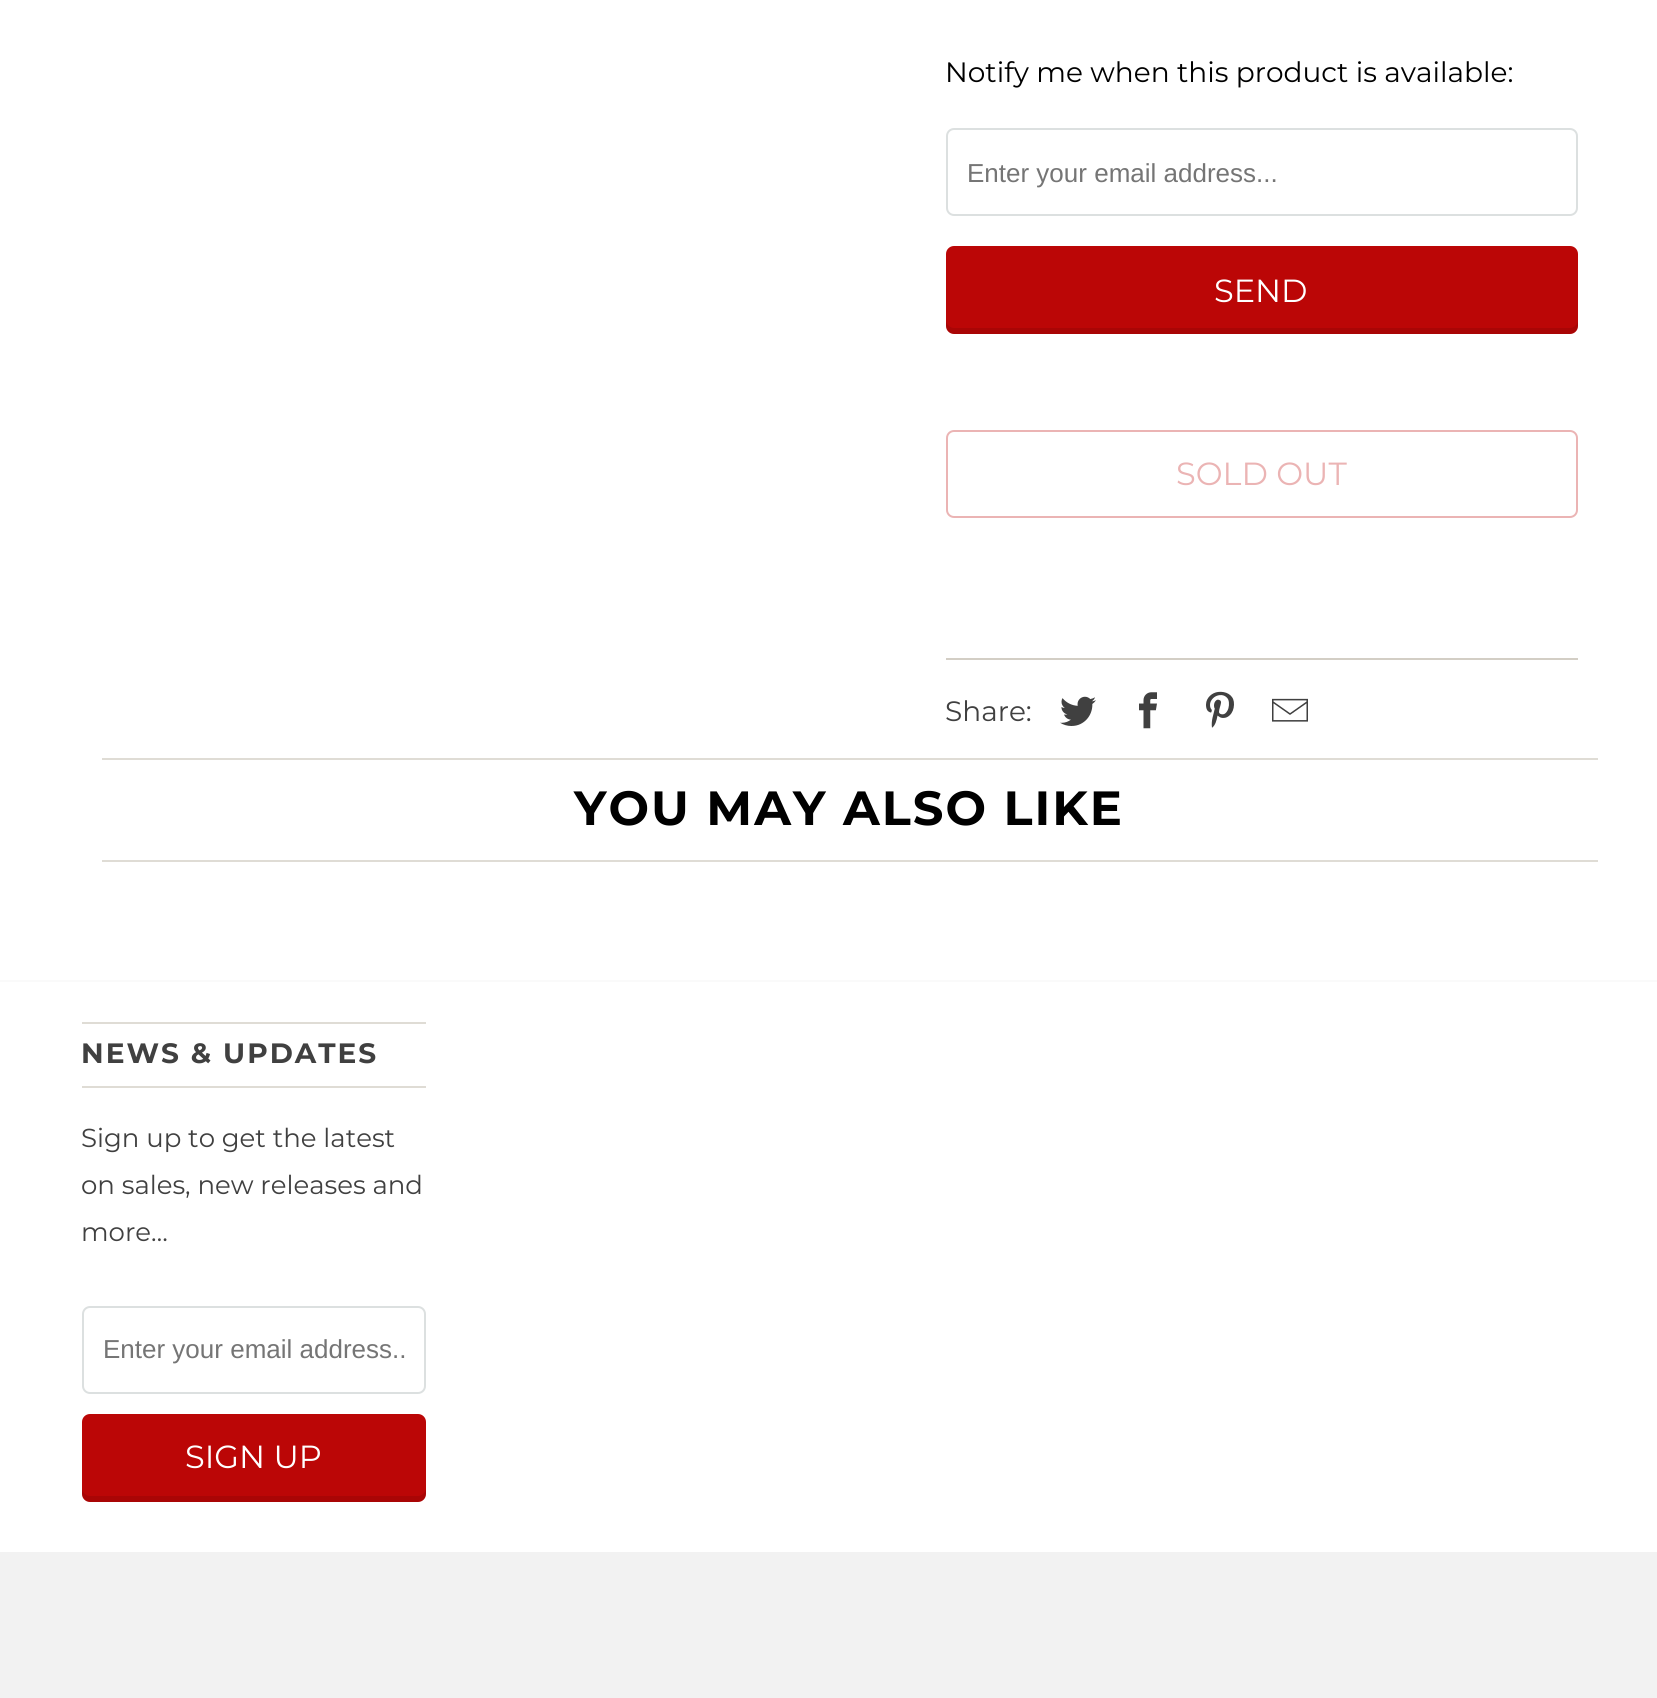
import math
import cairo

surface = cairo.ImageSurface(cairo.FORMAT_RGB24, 1657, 1698)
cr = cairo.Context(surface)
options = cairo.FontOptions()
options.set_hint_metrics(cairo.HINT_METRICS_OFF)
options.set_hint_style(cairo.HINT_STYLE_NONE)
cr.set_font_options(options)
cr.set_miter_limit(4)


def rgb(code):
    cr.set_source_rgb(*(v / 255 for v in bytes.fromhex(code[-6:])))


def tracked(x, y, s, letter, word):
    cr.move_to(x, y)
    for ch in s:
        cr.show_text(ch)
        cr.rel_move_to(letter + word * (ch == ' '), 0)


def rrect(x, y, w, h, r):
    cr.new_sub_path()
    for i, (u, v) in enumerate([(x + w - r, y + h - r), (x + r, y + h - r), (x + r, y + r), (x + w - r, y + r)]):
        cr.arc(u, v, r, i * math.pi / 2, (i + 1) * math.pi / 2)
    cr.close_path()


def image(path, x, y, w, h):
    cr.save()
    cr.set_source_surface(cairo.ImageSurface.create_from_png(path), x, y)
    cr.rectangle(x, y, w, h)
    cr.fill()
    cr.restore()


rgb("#ffffff")
cr.paint()
rrect(947, 129, 630, 86, 7)
rgb("#dce0e0")
cr.stroke()
rgb("#bb0606")
rrect(946, 246, 632, 88, 8)
cr.fill()
cr.set_source_rgba(0, 0, 0, 0.1)
cr.new_path()
cr.move_to(946, 320)
cr.line_to(946, 326)
cr.curve_to(946, 330, 950, 334, 954, 334)
cr.line_to(1570, 334)
cr.curve_to(1574, 334, 1578, 330, 1578, 326)
cr.line_to(1578, 320)
cr.curve_to(1578, 324, 1574, 328, 1570, 328)
cr.line_to(954, 328)
cr.curve_to(950, 328, 946, 324, 946, 320)
cr.close_path()
cr.fill()
rrect(947, 431, 630, 86, 7)
rgb("#ebb4b4")
cr.stroke()
rgb("#d3cec5")
cr.rectangle(946, 658, 632, 2)
cr.fill()
image("img/1.png", 1060, 696, 36, 30)
image("img/2.png", 1139, 692, 18, 37)
image("img/3.png", 1206, 691, 28, 37)
image("img/4.png", 1272, 698, 36, 24)
for x, y, w, h, color in [
    (102, 758, 1496, 2, "#dfdcd5"),
    (102, 860, 1496, 2, "#dfdcd5"),
    (0, 980, 1657, 2, "#fafafa"),
    (82, 1022, 344, 2, "#dfdcd5"),
    (82, 1086, 344, 2, "#dfdcd5"),
]:
    rgb(color)
    cr.rectangle(x, y, w, h)
    cr.fill()
rrect(83, 1307, 342, 86, 7)
rgb("#dce0e0")
cr.stroke()
rgb("#bb0606")
rrect(82, 1414, 344, 88, 8)
cr.fill()
cr.set_source_rgba(0, 0, 0, 0.1)
cr.new_path()
cr.move_to(82, 1488)
cr.line_to(82, 1494)
cr.curve_to(82, 1498, 86, 1502, 90, 1502)
cr.line_to(418, 1502)
cr.curve_to(422, 1502, 426, 1498, 426, 1494)
cr.line_to(426, 1488)
cr.curve_to(426, 1492, 422, 1496, 418, 1496)
cr.line_to(90, 1496)
cr.curve_to(86, 1496, 82, 1492, 82, 1488)
cr.close_path()
cr.fill()
rgb("#f2f2f2")
cr.rectangle(0, 1552, 1657, 146)
cr.fill()
cr.select_font_face("Montserrat")
cr.set_font_size(28)
rgb("#000000")
cr.move_to(945, 82)
cr.show_text("Notify me when this product is available:")
cr.select_font_face("Liberation Sans")
cr.set_font_size(26)
rgb("#757575")
cr.move_to(967, 182)
cr.show_text("Enter your email address...")
cr.select_font_face("Montserrat")
cr.set_font_size(32)
rgb("#ffffff")
cr.move_to(1214, 302)
cr.show_text("SEND")
rgb("#ebb4b4")
cr.move_to(1176, 485)
cr.show_text("SOLD OUT")
cr.set_font_size(28)
rgb("#404040")
cr.move_to(945, 721)
cr.show_text("Share:")
cr.select_font_face("Montserrat", cairo.FONT_SLANT_NORMAL, cairo.FONT_WEIGHT_BOLD)
cr.set_font_size(48)
rgb("#000000")
tracked(574, 825, "YOU MAY ALSO LIKE", 2, 0)
cr.set_font_size(28)
rgb("#404040")
tracked(81, 1063, "NEWS & UPDATES", 2, 0)
cr.select_font_face("Montserrat")
cr.set_font_size(26)
for x, y, s in [
    (81, 1147, "Sign up to get the latest"),
    (81, 1194, "on sales, new releases and"),
    (81, 1241, "more…"),
]:
    cr.move_to(x, y)
    cr.show_text(s)
cr.save()
cr.rectangle(104, 1334, 300, 30)
cr.clip()
cr.select_font_face("Liberation Sans")
rgb("#757575")
cr.move_to(103, 1358)
cr.show_text("Enter your email address..")
cr.restore()
cr.set_font_size(32)
rgb("#ffffff")
cr.move_to(185, 1468)
cr.show_text("SIGN UP")
surface.write_to_png("page.png")
